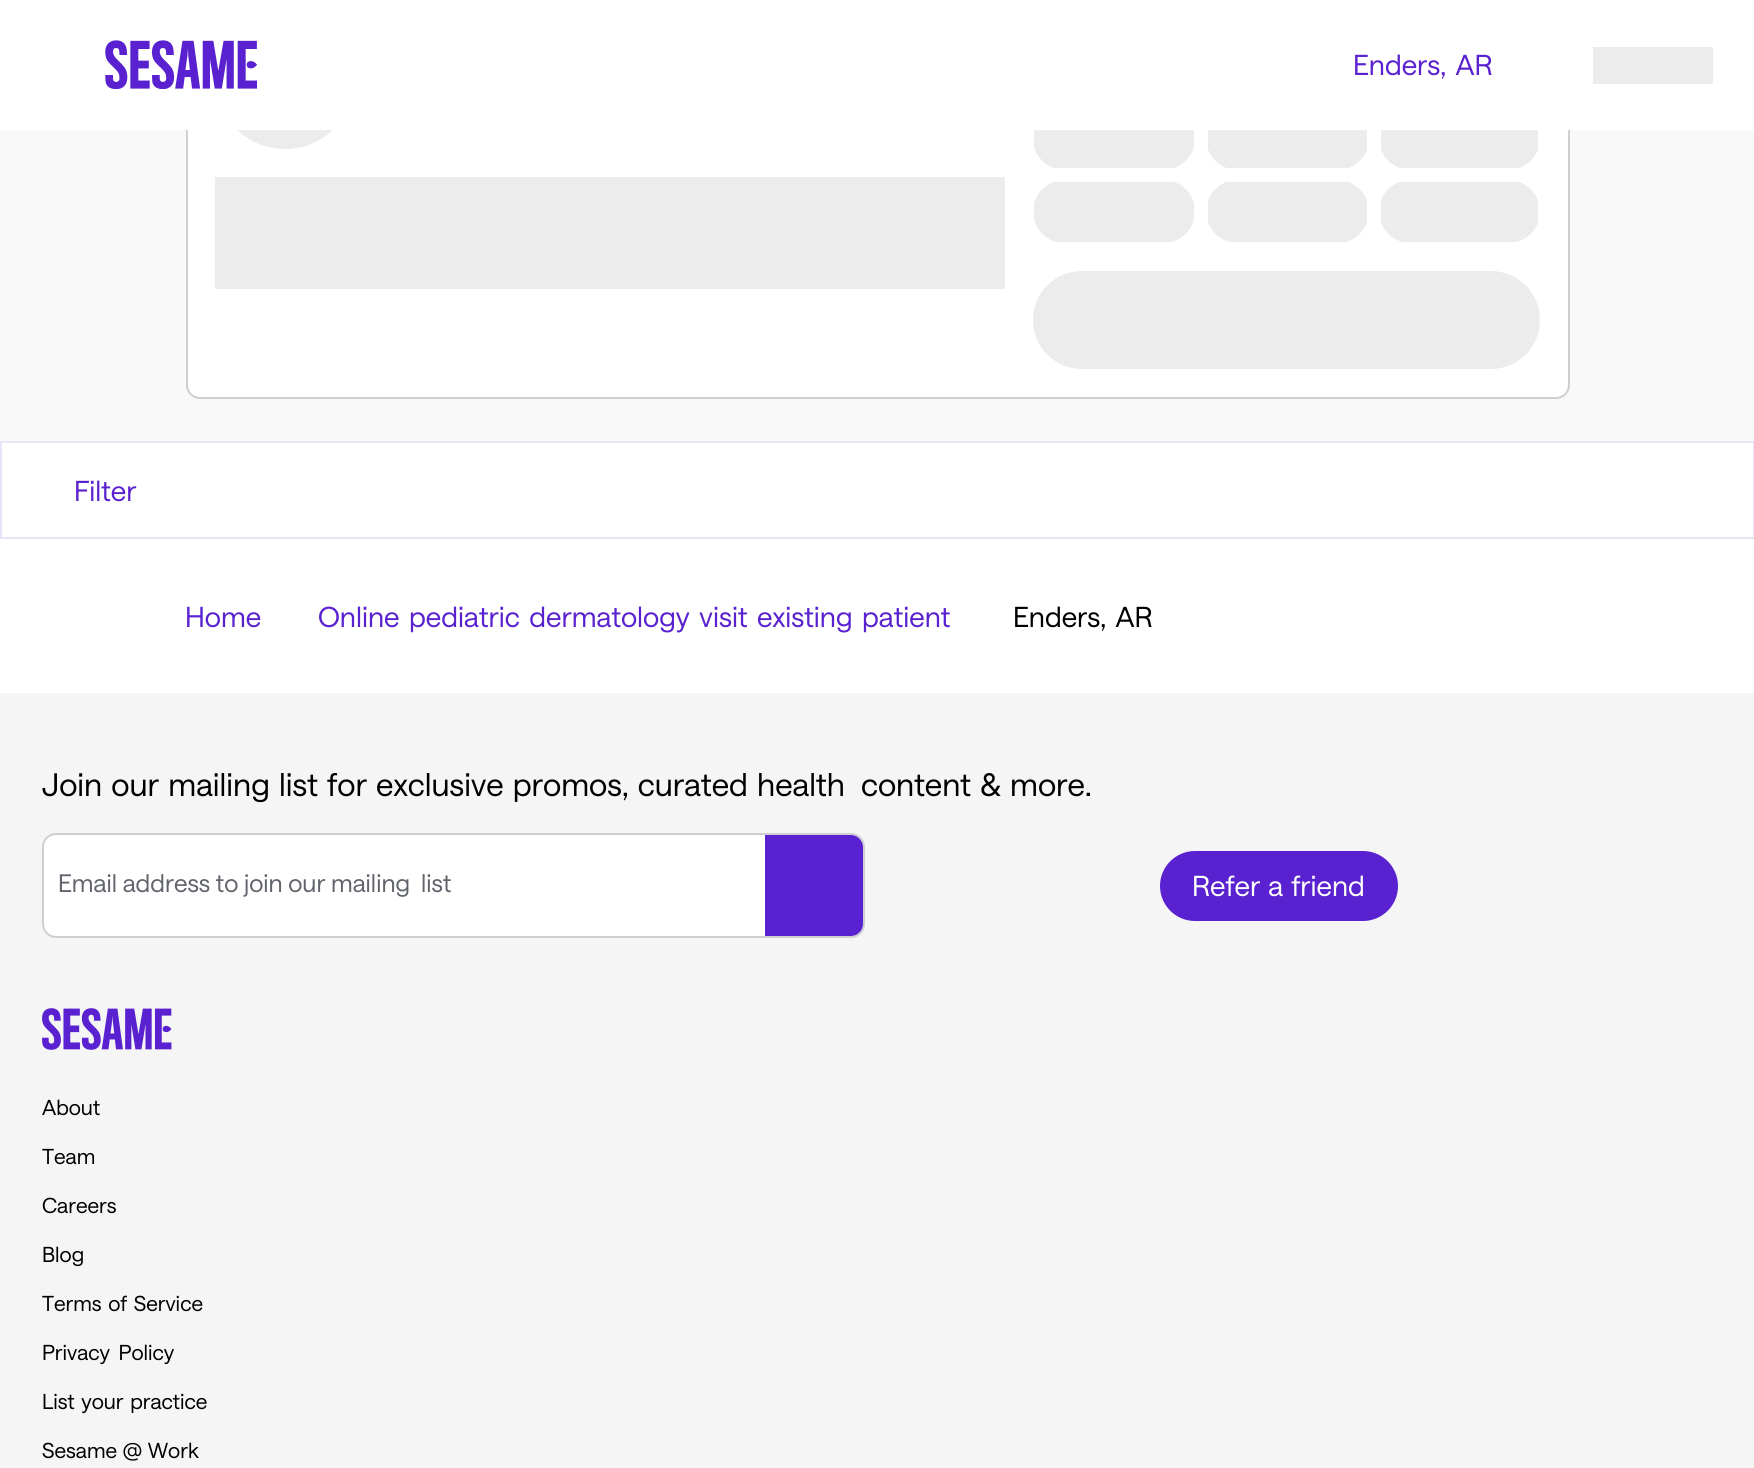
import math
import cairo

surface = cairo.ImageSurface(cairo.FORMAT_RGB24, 1754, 1468)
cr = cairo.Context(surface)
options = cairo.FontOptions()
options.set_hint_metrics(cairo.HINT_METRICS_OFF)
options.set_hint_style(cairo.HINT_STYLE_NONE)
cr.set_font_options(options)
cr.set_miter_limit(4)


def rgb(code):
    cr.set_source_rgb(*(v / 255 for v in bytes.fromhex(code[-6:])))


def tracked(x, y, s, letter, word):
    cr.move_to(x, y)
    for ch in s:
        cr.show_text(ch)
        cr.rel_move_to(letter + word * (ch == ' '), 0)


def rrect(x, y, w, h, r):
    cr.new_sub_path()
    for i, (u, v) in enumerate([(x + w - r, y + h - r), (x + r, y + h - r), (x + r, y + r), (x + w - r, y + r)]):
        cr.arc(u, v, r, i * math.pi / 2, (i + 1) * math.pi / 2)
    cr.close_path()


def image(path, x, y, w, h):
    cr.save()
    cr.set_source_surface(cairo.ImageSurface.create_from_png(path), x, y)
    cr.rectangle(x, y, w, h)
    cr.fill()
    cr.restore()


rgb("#ffffff")
cr.paint()
rgb("#f9f9f9")
cr.rectangle(0, 130, 1754, 311)
cr.fill()
rgb("#ffffff")
rrect(187, -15, 1382, 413, 13)
cr.fill_preserve()
rgb("#cecfd2")
cr.stroke()
rgb("#ececed")
cr.rectangle(215, 177, 790, 112)
cr.fill()
gradient = cairo.RadialGradient(285, 79, 0, 285, 79, 140)
gradient.add_color_stop_rgba(0.5, 0.925, 0.925, 0.929, 1)
gradient.add_color_stop_rgba(0.5, 1, 1, 1, 1)
cr.set_source(gradient)
cr.rectangle(238, 130, 94, 19)
cr.fill()
cr.save()
rrect(1033, 107, 162, 63, 31.5)
cr.clip()
rgb("#ececed")
cr.rectangle(1034, 130, 160, 38)
cr.fill()
cr.restore()
cr.save()
rrect(1206, 107, 163, 63, 31.5)
cr.clip()
rgb("#ececed")
cr.rectangle(1208, 130, 159, 38)
cr.fill()
cr.restore()
cr.save()
rrect(1379, 107, 161, 63, 31.5)
cr.clip()
rgb("#ececed")
cr.rectangle(1381, 130, 157, 38)
cr.fill()
cr.restore()
cr.save()
rrect(1033, 180, 162, 63, 31.5)
cr.clip()
rgb("#ececed")
cr.rectangle(1034, 182, 160, 60)
cr.fill()
cr.restore()
cr.save()
rrect(1206, 180, 163, 63, 31.5)
cr.clip()
rgb("#ececed")
cr.rectangle(1208, 182, 159, 60)
cr.fill()
cr.restore()
cr.save()
rrect(1379, 180, 161, 63, 31.5)
cr.clip()
rgb("#ececed")
cr.rectangle(1381, 182, 157, 60)
cr.fill()
cr.restore()
rgb("#ececed")
rrect(1033, 271, 507, 98, 49)
cr.fill()
rgb("#ffffff")
cr.rectangle(186, 0, 1384, 130)
cr.fill()
image("img/1.png", 105, 40, 152, 49)
rgb("#ececed")
cr.rectangle(1593, 47, 120, 37)
cr.fill()
cr.rectangle(1, 442, 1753, 96)
rgb("#eae3f9")
cr.stroke()
rgb("#f5f5f6")
cr.rectangle(0, 693, 1754, 775)
cr.fill()
rgb("#ffffff")
rrect(43, 834, 821, 103, 13)
cr.fill_preserve()
rgb("#cecfd2")
cr.stroke()
rgb("#5921cf")
cr.new_path()
cr.move_to(765, 835)
cr.line_to(851, 835)
cr.curve_to(857.5, 835, 863, 840.5, 863, 847)
cr.line_to(863, 924)
cr.curve_to(863, 930.5, 857.5, 936, 851, 936)
cr.line_to(765, 936)
cr.close_path()
cr.fill()
rrect(1162, 853, 234, 66, 33)
cr.fill_preserve()
cr.set_line_width(4)
cr.stroke()
image("img/2.png", 42, 1008, 130, 42)
cr.select_font_face("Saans")
cr.set_font_size(28)
tracked(1353, 75, "Enders, AR", 0, 3)
cr.move_to(74, 501)
cr.show_text("Filter")
cr.move_to(185, 627)
cr.show_text("Home")
tracked(318, 627, "Online pediatric dermatology visit existing patient", 0, 3.5)
rgb("#000000")
tracked(1013, 627, "Enders, AR", 0, 3)
cr.set_font_size(31.5)
tracked(42, 796, "Join our mailing list for exclusive promos, curated health", 0, 2.25)
tracked(861, 796, "content & more.", 0, 2.25)
cr.set_font_size(24.5)
rgb("#61646c")
tracked(58, 892, "Email address to join our mailing", 0, 0.25)
tracked(421, 892, "list", 0, 0.25)
cr.set_font_size(28)
rgb("#ffffff")
tracked(1192, 896, "Refer a friend", 0, 2)
cr.set_font_size(21)
rgb("#000000")
for x, y, s in [
    (42, 1115, "About"),
    (42, 1164, "Team"),
    (42, 1213, "Careers"),
    (42, 1262, "Blog"),
]:
    cr.move_to(x, y)
    cr.show_text(s)
tracked(42, 1311, "Terms of Service", 0, 2)
tracked(42, 1360, "Privacy Policy", 0, 4)
tracked(42, 1409, "List your practice", 0, 2)
tracked(42, 1458, "Sesame @ Work", 0, 1)
surface.write_to_png("page.png")
